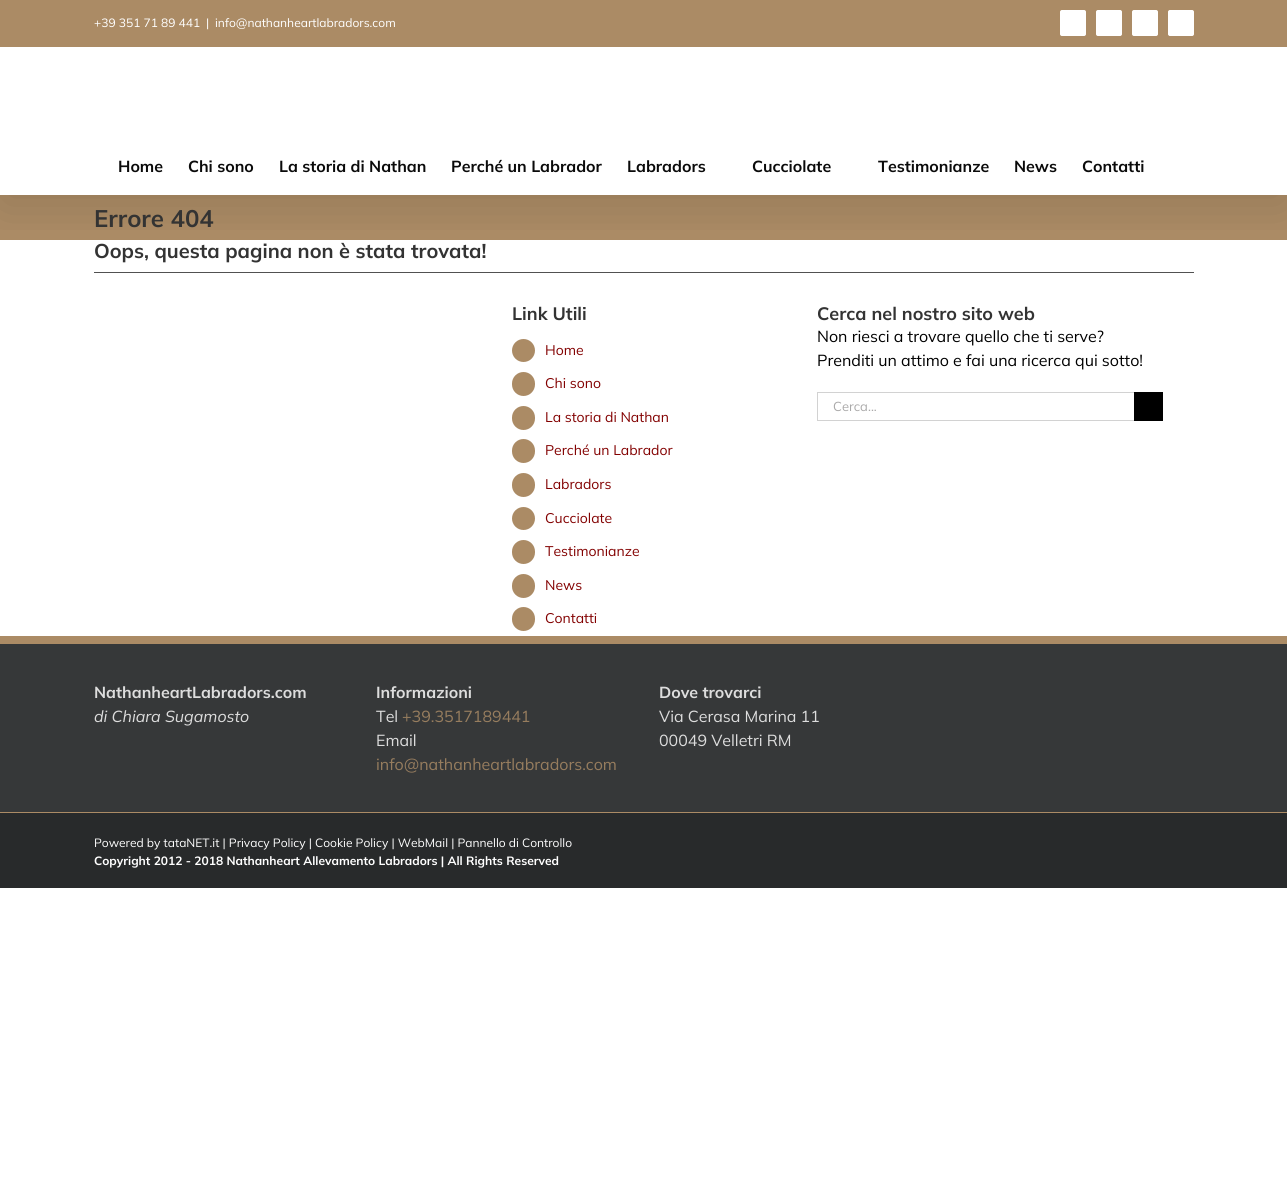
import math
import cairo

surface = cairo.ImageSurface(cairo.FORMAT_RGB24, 1287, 1202)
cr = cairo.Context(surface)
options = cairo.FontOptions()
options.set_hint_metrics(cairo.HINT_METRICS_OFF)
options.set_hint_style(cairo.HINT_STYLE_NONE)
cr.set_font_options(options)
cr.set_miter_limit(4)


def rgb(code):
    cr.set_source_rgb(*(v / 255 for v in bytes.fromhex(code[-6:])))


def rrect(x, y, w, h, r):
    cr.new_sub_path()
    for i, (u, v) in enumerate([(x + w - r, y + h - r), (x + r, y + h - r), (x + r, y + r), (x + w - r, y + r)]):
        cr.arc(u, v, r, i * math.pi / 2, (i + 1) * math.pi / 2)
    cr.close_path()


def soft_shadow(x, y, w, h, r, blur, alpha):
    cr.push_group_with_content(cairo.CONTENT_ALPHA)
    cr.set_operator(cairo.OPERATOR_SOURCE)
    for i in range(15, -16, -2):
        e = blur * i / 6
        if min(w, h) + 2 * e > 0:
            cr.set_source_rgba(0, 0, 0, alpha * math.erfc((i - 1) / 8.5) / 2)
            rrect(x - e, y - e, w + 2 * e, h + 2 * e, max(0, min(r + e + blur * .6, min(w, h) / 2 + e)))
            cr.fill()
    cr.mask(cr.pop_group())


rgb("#ffffff")
cr.paint()
rgb("#ab8b65")
cr.rectangle(0, 195, 1287, 45)
cr.fill()
rgb("#515151")
cr.rectangle(94, 272, 1100, 1)
cr.fill()
cr.save()
cr.rectangle(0, 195, 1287, 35)
cr.clip()
rgb("#000000")
soft_shadow(2, 12, 1283, 191, 0, 25, 0.14)
cr.restore()
rgb("#ab8b65")
cr.rectangle(0, 0, 1287, 47)
cr.fill()
rgb("#ffffff")
rrect(1060.5, 10.5, 25, 25, 1.5)
cr.fill_preserve()
cr.set_line_width(1)
cr.stroke()
rrect(1096.5, 10.5, 25, 25, 1.5)
cr.fill_preserve()
cr.stroke()
rrect(1132.5, 10.5, 25, 25, 1.5)
cr.fill_preserve()
cr.stroke()
rrect(1168.5, 10.5, 25, 25, 1.5)
cr.fill_preserve()
cr.stroke()
rgb("#ab8b65")
cr.arc(523.5, 350.5, 11.5, 0, 2 * math.pi)
cr.fill()
rrect(512, 372, 23, 24, 11.5)
cr.fill()
rrect(512, 406, 23, 24, 11.5)
cr.fill()
rrect(512, 439, 23, 24, 11.5)
cr.fill()
rrect(512, 473, 23, 24, 11.5)
cr.fill()
cr.arc(523.5, 518.5, 11.5, 0, 2 * math.pi)
cr.fill()
rrect(512, 540, 23, 24, 11.5)
cr.fill()
rrect(512, 574, 23, 24, 11.5)
cr.fill()
rrect(512, 607, 23, 24, 11.5)
cr.fill()
for x, y, w, h, color in [
    (817, 392, 317, 1, "#d2d2d2"),
    (817, 420, 317, 1, "#d2d2d2"),
    (817, 392, 1, 29, "#d2d2d2"),
    (1134, 392, 29, 29, "#000000"),
    (0, 644, 1287, 168, "#363839"),
    (0, 636, 1287, 8, "#ab8b65"),
    (0, 813, 1287, 75, "#282a2b"),
    (0, 812, 1287, 1, "#ab8b65"),
]:
    rgb(color)
    cr.rectangle(x, y, w, h)
    cr.fill()
cr.select_font_face("Mulish")
cr.set_font_size(12)
rgb("#ffffff")
for x, y, s in [
    (94, 27, "+39 351 71 89 441"),
    (206, 27, "|"),
    (215, 27, "info@nathanheartlabradors.com"),
]:
    cr.move_to(x, y)
    cr.show_text(s)
cr.select_font_face("Mulish", cairo.FONT_SLANT_NORMAL, cairo.FONT_WEIGHT_BOLD)
cr.set_font_size(16)
rgb("#0a0a0a")
for x, y, s in [
    (118, 172, "Home"),
    (188, 172, "Chi sono"),
    (279, 172, "La storia di Nathan"),
    (451, 172, "Perché un Labrador"),
    (627, 172, "Labradors"),
    (752, 172, "Cucciolate"),
    (878, 172, "Testimonianze"),
    (1014, 172, "News"),
    (1082, 172, "Contatti"),
]:
    cr.move_to(x, y)
    cr.show_text(s)
cr.set_font_size(24)
rgb("#333333")
cr.move_to(94, 227)
cr.show_text("Errore 404")
cr.set_font_size(20)
cr.move_to(94, 258)
cr.show_text("Oops, questa pagina non è stata trovata!")
cr.set_font_size(18)
cr.move_to(512, 320)
cr.show_text("Link Utili")
cr.select_font_face("Mulish")
cr.set_font_size(14)
rgb("#820000")
for x, y, s in [
    (545, 355, "Home"),
    (545, 388, "Chi sono"),
    (545, 422, "La storia di Nathan"),
    (545, 455, "Perché un Labrador"),
    (545, 489, "Labradors"),
    (545, 523, "Cucciolate"),
    (545, 556, "Testimonianze"),
    (545, 590, "News"),
    (545, 623, "Contatti"),
]:
    cr.move_to(x, y)
    cr.show_text(s)
cr.select_font_face("Mulish", cairo.FONT_SLANT_NORMAL, cairo.FONT_WEIGHT_BOLD)
cr.set_font_size(18)
rgb("#333333")
cr.move_to(817, 320)
cr.show_text("Cerca nel nostro sito web")
cr.select_font_face("Mulish")
cr.set_font_size(16)
rgb("#000000")
cr.move_to(817, 342)
cr.show_text("Non riesci a trovare quello che ti serve?")
cr.move_to(817, 366)
cr.show_text("Prenditi un attimo e fai una ricerca qui sotto!")
cr.set_font_size(13)
rgb("#aaa9a9")
cr.move_to(833, 411)
cr.show_text("Cerca...")
cr.select_font_face("Mulish", cairo.FONT_SLANT_NORMAL, cairo.FONT_WEIGHT_BOLD)
cr.set_font_size(16)
rgb("#dddddd")
cr.move_to(94, 698)
cr.show_text("NathanheartLabradors.com")
cr.select_font_face("Mulish", cairo.FONT_SLANT_ITALIC)
cr.move_to(94, 722)
cr.show_text("di Chiara Sugamosto")
cr.select_font_face("Mulish", cairo.FONT_SLANT_NORMAL, cairo.FONT_WEIGHT_BOLD)
cr.move_to(376, 698)
cr.show_text("Informazioni")
cr.select_font_face("Mulish")
cr.move_to(376, 722)
cr.show_text("Tel")
rgb("#977d5e")
cr.move_to(402, 722)
cr.show_text("+39.3517189441")
rgb("#dddddd")
cr.move_to(376, 746)
cr.show_text("Email")
rgb("#977d5e")
cr.move_to(376, 770)
cr.show_text("info@nathanheartlabradors.com")
cr.select_font_face("Mulish", cairo.FONT_SLANT_NORMAL, cairo.FONT_WEIGHT_BOLD)
rgb("#dddddd")
cr.move_to(659, 698)
cr.show_text("Dove trovarci")
cr.select_font_face("Mulish")
cr.move_to(659, 722)
cr.show_text("Via Cerasa Marina 11")
cr.move_to(659, 746)
cr.show_text("00049 Velletri RM")
cr.set_font_size(12)
rgb("#ffffff")
cr.move_to(94, 847)
cr.show_text("Powered by tataNET.it | Privacy Policy | Cookie Policy | WebMail | Pannello di Controllo")
cr.select_font_face("Mulish", cairo.FONT_SLANT_NORMAL, cairo.FONT_WEIGHT_BOLD)
cr.move_to(94, 865)
cr.show_text("Copyright 2012 - 2018 Nathanheart Allevamento Labradors | All Rights Reserved")
surface.write_to_png("page.png")
